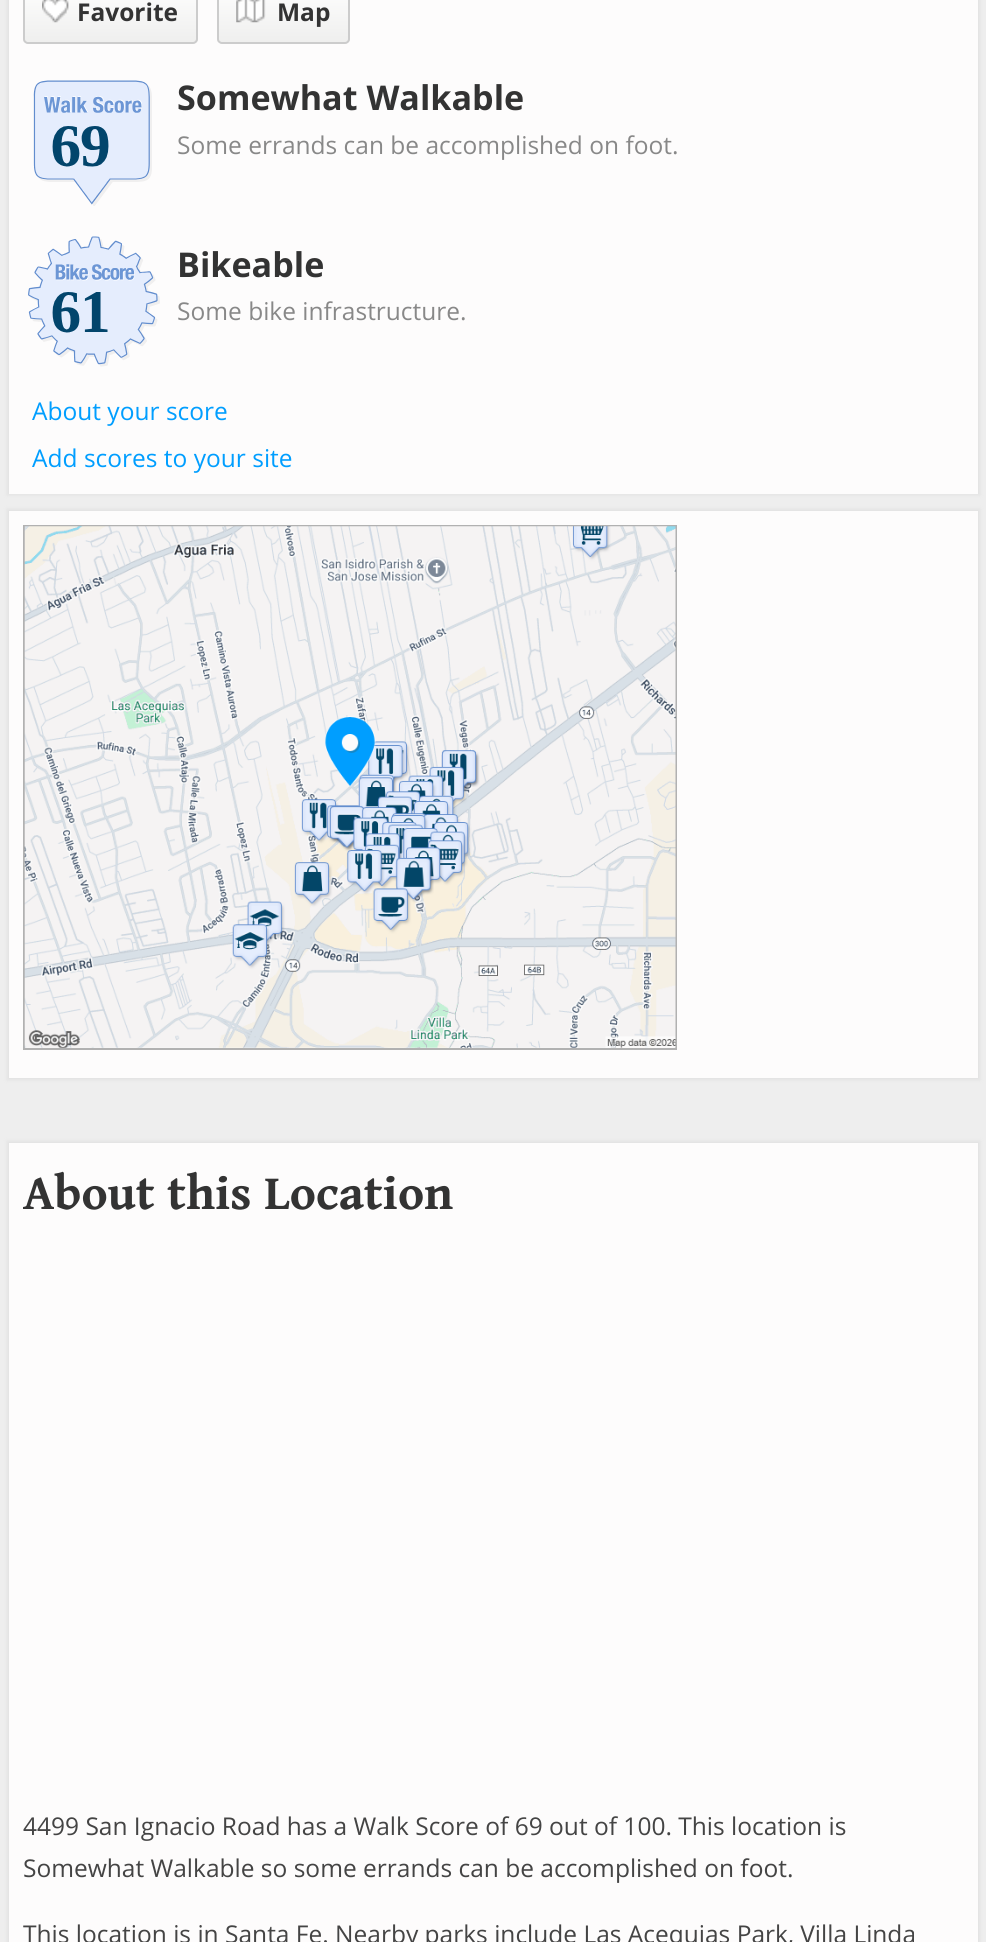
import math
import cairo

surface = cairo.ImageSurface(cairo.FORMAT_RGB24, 986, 1942)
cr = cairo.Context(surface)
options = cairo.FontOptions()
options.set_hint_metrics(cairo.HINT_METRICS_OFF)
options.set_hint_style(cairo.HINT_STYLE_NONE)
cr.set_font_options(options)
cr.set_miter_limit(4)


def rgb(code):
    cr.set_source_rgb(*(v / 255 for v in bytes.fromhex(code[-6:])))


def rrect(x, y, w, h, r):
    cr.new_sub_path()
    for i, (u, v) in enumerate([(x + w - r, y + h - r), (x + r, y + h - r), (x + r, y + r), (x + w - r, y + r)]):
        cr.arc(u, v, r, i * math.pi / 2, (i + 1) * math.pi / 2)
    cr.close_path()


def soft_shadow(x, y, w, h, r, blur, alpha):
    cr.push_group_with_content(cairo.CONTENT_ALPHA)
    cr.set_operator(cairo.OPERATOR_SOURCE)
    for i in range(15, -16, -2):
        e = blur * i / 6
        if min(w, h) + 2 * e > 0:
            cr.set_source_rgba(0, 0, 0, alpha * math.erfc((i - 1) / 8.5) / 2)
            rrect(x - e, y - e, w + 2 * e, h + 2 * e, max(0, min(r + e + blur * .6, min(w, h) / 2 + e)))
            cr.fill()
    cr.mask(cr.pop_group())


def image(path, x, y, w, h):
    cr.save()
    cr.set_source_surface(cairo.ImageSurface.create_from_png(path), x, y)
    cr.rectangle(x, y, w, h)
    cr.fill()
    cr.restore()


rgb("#eeeeee")
cr.paint()
rgb("#e2e2e2")
soft_shadow(7, -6, 973, 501, 0, 2, 1)
rgb("#fdfcfc")
cr.rectangle(9, 0, 969, 494)
cr.fill()
cr.save()
rrect(23, -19, 175, 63, 5)
cr.clip()
gradient = cairo.LinearGradient(110, -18, 110, 42)
gradient.add_color_stop_rgba(0, 1, 1, 1, 1)
gradient.add_color_stop_rgba(1, 0.937, 0.937, 0.933, 1)
cr.set_source(gradient)
cr.rectangle(23, 0, 175, 42)
cr.fill()
cr.restore()
rrect(24, -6, 173, 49, 4)
rgb("#cccccc")
cr.stroke()
image("img/1.png", 42, 0, 27, 23)
cr.save()
rrect(217, -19, 133, 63, 5)
cr.clip()
gradient = cairo.LinearGradient(284, -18, 284, 42)
gradient.add_color_stop_rgba(0, 1, 1, 1, 1)
gradient.add_color_stop_rgba(1, 0.937, 0.937, 0.933, 1)
cr.set_source(gradient)
cr.rectangle(217, 0, 133, 42)
cr.fill()
cr.restore()
rrect(218, -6, 131, 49, 4)
cr.stroke()
image("img/2.png", 236, 0, 30, 23)
image("img/3.png", 33, 80, 119, 126)
image("img/4.png", 28, 236, 132, 131)
rgb("#e2e2e2")
soft_shadow(7, 509, 973, 571, 0, 2, 1)
rgb("#fdfcfc")
cr.rectangle(9, 511, 969, 567)
cr.fill()
cr.rectangle(24, 526, 652, 523)
rgb("#b1b1b1")
cr.stroke()
image("img/5.png", 24, 526, 652, 522)
image("img/6.png", 325, 716, 51, 71)
rgb("#e2e2e2")
soft_shadow(7, 1141, 973, 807, 0, 2, 1)
rgb("#fdfcfc")
cr.rectangle(9, 1143, 969, 799)
cr.fill()
cr.select_font_face("Open Sans", cairo.FONT_SLANT_NORMAL, cairo.FONT_WEIGHT_BOLD)
cr.set_font_size(24.5)
rgb("#333333")
cr.move_to(77, 21)
cr.show_text("Favorite")
cr.move_to(277, 21)
cr.show_text("Map")
cr.set_font_size(34.1)
cr.move_to(177, 110)
cr.show_text("Somewhat Walkable")
cr.select_font_face("Open Sans")
cr.set_font_size(24.5)
rgb("#888888")
cr.move_to(177, 154)
cr.show_text("Some errands can be accomplished on foot.")
cr.select_font_face("Open Sans", cairo.FONT_SLANT_NORMAL, cairo.FONT_WEIGHT_BOLD)
cr.set_font_size(34.1)
rgb("#333333")
cr.move_to(177, 277)
cr.show_text("Bikeable")
cr.select_font_face("Open Sans")
cr.set_font_size(24.5)
rgb("#888888")
cr.move_to(177, 320)
cr.show_text("Some bike infrastructure.")
rgb("#009eff")
cr.move_to(32, 420)
cr.show_text("About your score")
cr.move_to(32, 467)
cr.show_text("Add scores to your site")
cr.select_font_face("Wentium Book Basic", cairo.FONT_SLANT_NORMAL, cairo.FONT_WEIGHT_BOLD)
cr.set_font_size(49.25)
rgb("#333333")
cr.move_to(23, 1209)
cr.show_text("About this Location")
cr.select_font_face("Open Sans")
cr.set_font_size(24.5)
rgb("#444444")
for x, y, s in [
    (23, 1835, "4499 San Ignacio Road has a Walk Score of 69 out of 100. This location is"),
    (23, 1877, "Somewhat Walkable so some errands can be accomplished on foot."),
    (23, 1943, "This location is in Santa Fe. Nearby parks include Las Acequias Park, Villa Linda"),
]:
    cr.move_to(x, y)
    cr.show_text(s)
surface.write_to_png("page.png")
